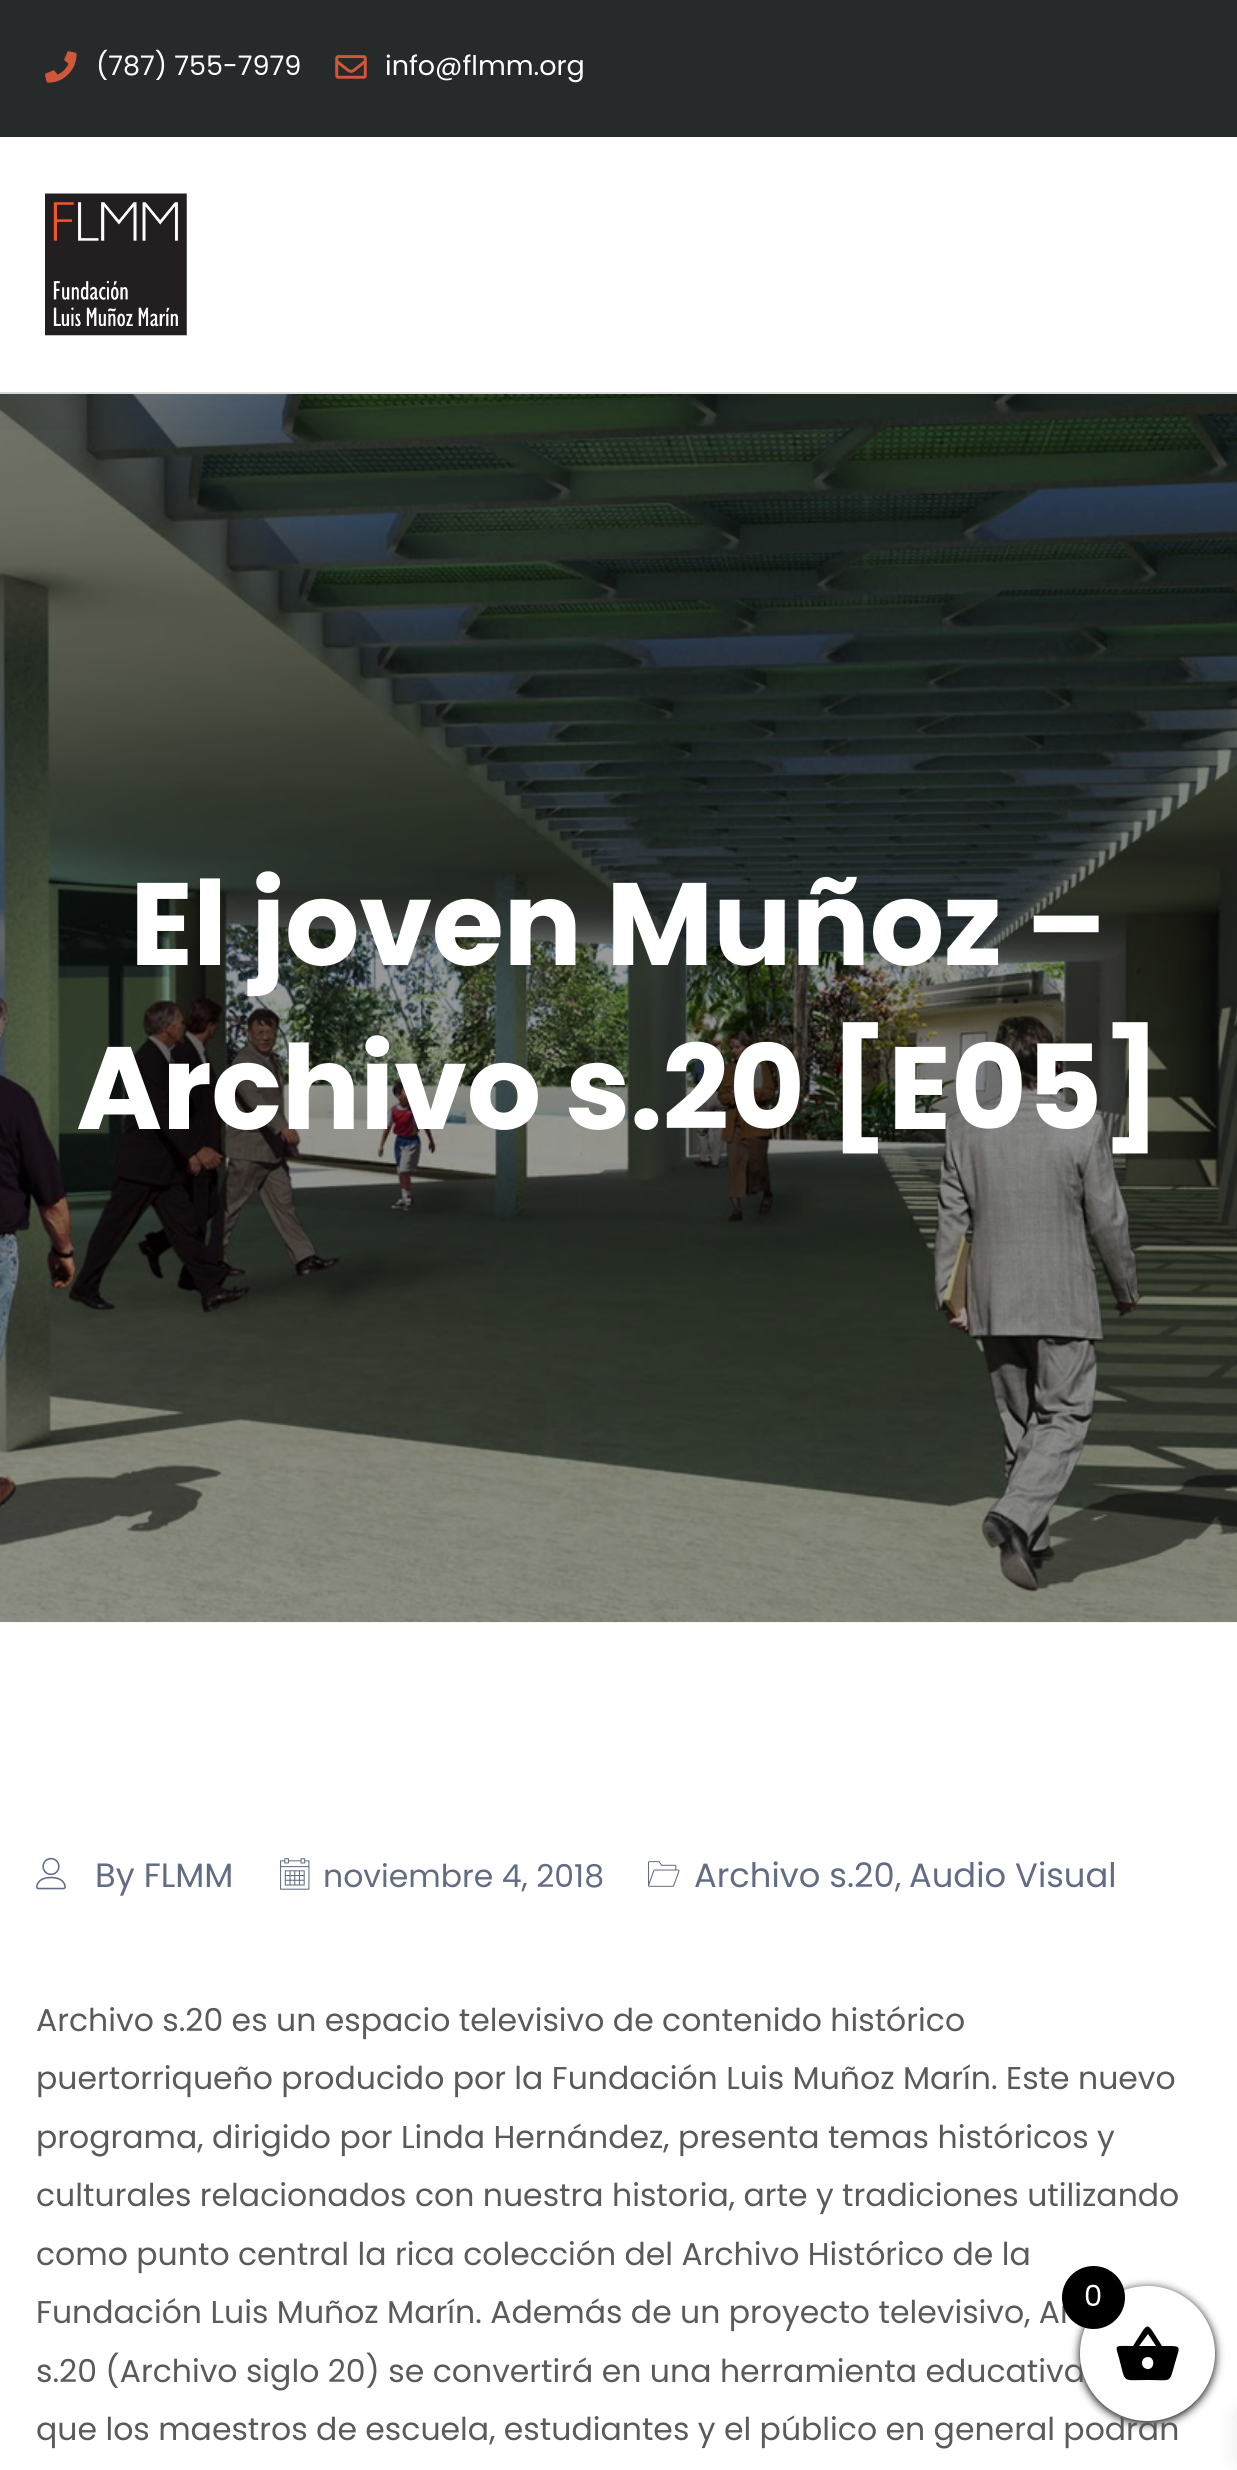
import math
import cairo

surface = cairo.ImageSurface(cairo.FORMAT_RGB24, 1237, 2470)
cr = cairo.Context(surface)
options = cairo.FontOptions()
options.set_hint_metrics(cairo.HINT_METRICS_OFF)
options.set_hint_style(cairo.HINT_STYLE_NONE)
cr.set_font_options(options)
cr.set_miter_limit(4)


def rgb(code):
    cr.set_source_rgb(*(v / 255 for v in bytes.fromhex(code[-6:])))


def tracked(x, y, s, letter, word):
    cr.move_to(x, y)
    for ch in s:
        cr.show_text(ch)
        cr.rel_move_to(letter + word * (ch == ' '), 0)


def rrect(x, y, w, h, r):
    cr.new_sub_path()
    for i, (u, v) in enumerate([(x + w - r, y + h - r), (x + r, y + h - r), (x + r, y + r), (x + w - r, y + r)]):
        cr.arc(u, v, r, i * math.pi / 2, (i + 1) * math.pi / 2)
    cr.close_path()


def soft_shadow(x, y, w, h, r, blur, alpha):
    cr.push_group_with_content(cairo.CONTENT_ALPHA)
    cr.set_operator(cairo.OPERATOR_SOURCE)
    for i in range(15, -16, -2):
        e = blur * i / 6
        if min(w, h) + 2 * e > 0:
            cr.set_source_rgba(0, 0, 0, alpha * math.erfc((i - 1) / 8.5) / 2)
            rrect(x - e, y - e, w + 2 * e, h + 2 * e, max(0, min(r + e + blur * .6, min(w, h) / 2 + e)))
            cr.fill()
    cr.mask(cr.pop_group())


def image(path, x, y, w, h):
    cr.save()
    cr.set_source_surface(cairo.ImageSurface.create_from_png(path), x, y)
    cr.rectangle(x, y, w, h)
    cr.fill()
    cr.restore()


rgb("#ffffff")
cr.paint()
image("img/4.png", 0, 394, 1237, 1229)
cr.save()
cr.rectangle(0, 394, 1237, 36)
cr.clip()
rgb("#000000")
soft_shadow(0, 137, 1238, 257, 0, 43, 0.1)
cr.restore()
rgb("#d8d8d8")
cr.rectangle(0, 392, 1237, 2)
cr.fill()
image("img/1.png", 45, 193, 142, 143)
rgb("#262a2b")
cr.rectangle(0, 0, 1237, 137)
cr.fill()
image("img/2.png", 45, 51, 32, 32)
image("img/3.png", 335, 55, 32, 24)
image("img/5.png", 36, 1857, 30, 33)
image("img/6.png", 280, 1858, 30, 32)
image("img/7.png", 648, 1861, 32, 26)
rgb("#000000")
soft_shadow(1080, 2288, 135, 135, 67.5, 4.5, 1)
soft_shadow(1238, 2414, 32, 45, 0, 11, 0.1)
cr.select_font_face("Poppins")
cr.set_font_size(27)
rgb("#ffffff")
cr.move_to(96, 75)
cr.show_text("(787) 755-7979")
cr.move_to(385, 75)
cr.show_text("info@flmm.org")
cr.select_font_face("Poppins", cairo.FONT_SLANT_NORMAL, cairo.FONT_WEIGHT_BOLD)
cr.set_font_size(117)
tracked(130, 965, "El joven Muñoz –", -0.5, 0)
tracked(76, 1129, "Archivo s.20 [E05]", -0.5, 0)
cr.select_font_face("Poppins")
cr.set_font_size(33.75)
rgb("#626c84")
cr.move_to(95, 1887)
cr.show_text("By FLMM")
cr.set_font_size(31.5)
cr.move_to(323, 1887)
cr.show_text("noviembre 4, 2018")
cr.set_font_size(33.75)
cr.move_to(694, 1887)
cr.show_text("Archivo s.20")
cr.set_font_size(31.5)
cr.move_to(895, 1887)
cr.show_text(",")
cr.set_font_size(33.75)
cr.move_to(909, 1887)
cr.show_text("Audio Visual")
cr.set_font_size(31.5)
rgb("#5a5a5a")
for x, y, s in [
    (36, 2031, "Archivo s.20 es un espacio televisivo de contenido histórico"),
    (36, 2089, "puertorriqueño producido por la Fundación Luis Muñoz Marín. Este nuevo"),
    (36, 2148, "programa, dirigido por Linda Hernández, presenta temas históricos y"),
    (36, 2206, "culturales relacionados con nuestra historia, arte y tradiciones utilizando"),
    (36, 2265, "como punto central la rica colección del Archivo Histórico de la"),
    (36, 2323, "Fundación Luis Muñoz Marín. Además de un proyecto televisivo, Ar"),
    (36, 2382, "s.20 (Archivo siglo 20) se convertirá en una herramienta educativa"),
    (36, 2440, "que los maestros de escuela, estudiantes y el público en general podrán"),
]:
    cr.move_to(x, y)
    cr.show_text(s)
rgb("#ffffff")
cr.new_path()
cr.arc(1147.5, 2353.5, 67.5, 0, 2 * math.pi)
cr.fill()
rgb("#000000")
cr.new_path()
cr.move_to(1148, 2369)
cr.curve_to(1155, 2369, 1155, 2357, 1148, 2357)
cr.curve_to(1140, 2357, 1140, 2369, 1148, 2369)
cr.close_path()
cr.move_to(1139, 2346)
cr.line_to(1156, 2346)
cr.line_to(1148, 2334)
cr.close_path()
cr.move_to(1162, 2346)
cr.curve_to(1183, 2346, 1180, 2345, 1175, 2363)
cr.curve_to(1169, 2384, 1172, 2380, 1148, 2380)
cr.curve_to(1121, 2380, 1126, 2384, 1119, 2358)
cr.curve_to(1115, 2344, 1114, 2346, 1133, 2346)
cr.curve_to(1150, 2320, 1145, 2320, 1162, 2346)
cr.close_path()
cr.fill()
cr.arc(1093.5, 2297.5, 31.5, 0, 2 * math.pi)
cr.fill()
cr.set_font_size(29)
rgb("#ffffff")
cr.move_to(1084, 2306)
cr.show_text("0")
surface.write_to_png("page.png")
